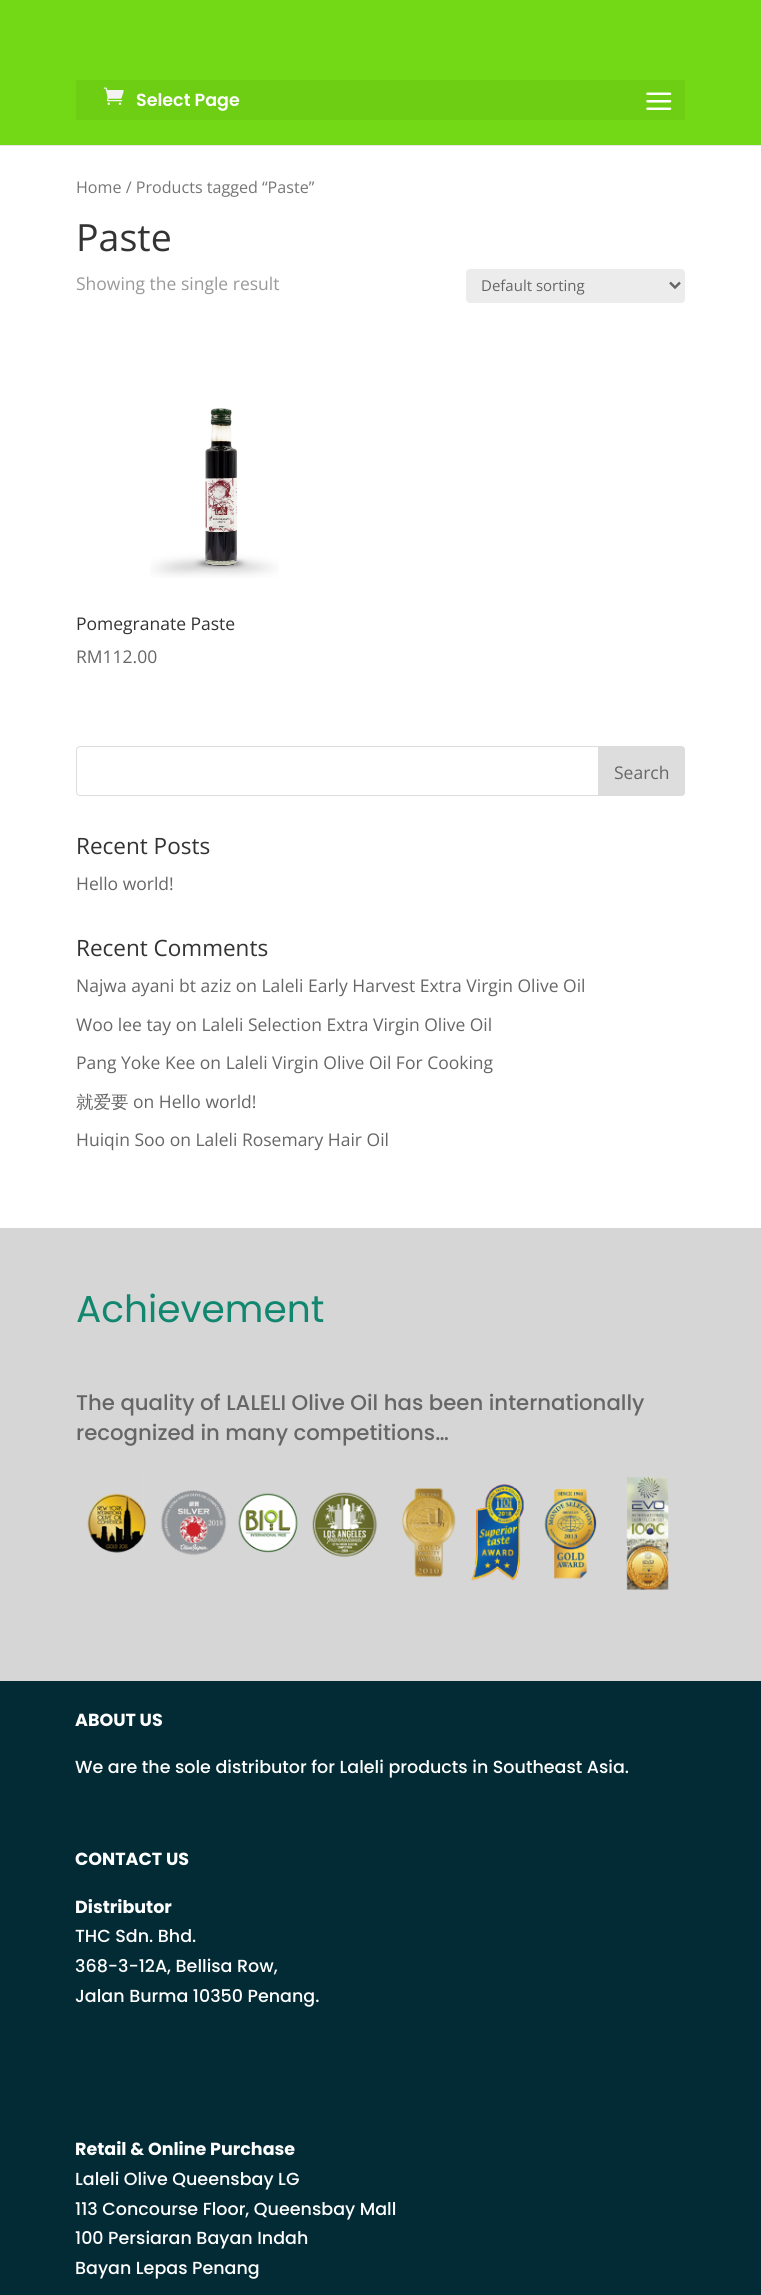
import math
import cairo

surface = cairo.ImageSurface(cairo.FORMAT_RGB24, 761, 2295)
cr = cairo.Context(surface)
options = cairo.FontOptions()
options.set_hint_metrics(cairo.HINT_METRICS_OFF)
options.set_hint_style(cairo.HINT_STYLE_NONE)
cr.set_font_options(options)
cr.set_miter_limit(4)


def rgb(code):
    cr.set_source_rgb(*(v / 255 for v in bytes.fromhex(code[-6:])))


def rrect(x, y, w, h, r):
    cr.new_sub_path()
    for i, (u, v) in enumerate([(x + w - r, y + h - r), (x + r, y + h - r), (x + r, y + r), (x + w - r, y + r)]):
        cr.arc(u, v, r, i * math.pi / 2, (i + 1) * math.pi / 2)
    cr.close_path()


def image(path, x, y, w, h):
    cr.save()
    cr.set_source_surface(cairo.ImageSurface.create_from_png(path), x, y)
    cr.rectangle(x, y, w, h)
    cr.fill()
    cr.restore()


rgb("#ffffff")
cr.paint()
rgb("#e6e6e6")
cr.rectangle(0, 145, 761, 1)
cr.fill()
rgb("#73d815")
cr.rectangle(0, 0, 761, 145)
cr.fill()
image("img/1.png", 103, 87, 21, 18)
cr.set_source_rgba(0, 0, 0, 0.05)
cr.rectangle(76, 80, 609, 40)
cr.fill()
image("img/2.png", 646, 92, 26, 18)
rgb("#ececec")
rrect(466, 269, 219, 34, 4)
cr.fill()
cr.new_path()
cr.move_to(670, 282.5)
cr.line_to(675, 287.5)
cr.line_to(680, 282.5)
rgb("#666666")
cr.set_line_width(2.5)
cr.stroke()
image("img/3.png", 150, 408, 129, 170)
rrect(76.5, 746.5, 608, 49, 3.5)
rgb("#dddddd")
cr.set_line_width(1)
cr.stroke()
cr.new_path()
cr.move_to(598.5, 746.5)
cr.line_to(681, 746.5)
cr.curve_to(683, 746.5, 684.5, 748, 684.5, 750)
cr.line_to(684.5, 792)
cr.curve_to(684.5, 794, 683, 795.5, 681, 795.5)
cr.line_to(598.5, 795.5)
cr.close_path()
cr.fill_preserve()
cr.stroke()
rgb("#d6d6d6")
cr.rectangle(0, 1228, 761, 453)
cr.fill()
image("img/4.png", 87, 1476, 582, 114)
rgb("#032b35")
cr.rectangle(0, 1681, 761, 614)
cr.fill()
cr.select_font_face("Poppins SemiBold")
cr.set_font_size(17.5)
rgb("#ffffff")
cr.move_to(136, 106)
cr.show_text("Select Page")
cr.select_font_face("Open Sans")
cr.set_font_size(16.1)
rgb("#767676")
cr.move_to(76, 193)
cr.show_text("Home / Products tagged “Paste”")
cr.set_font_size(37.5)
rgb("#333333")
cr.move_to(76, 251)
cr.show_text("Paste")
cr.set_font_size(17.5)
rgb("#999999")
cr.move_to(76, 290)
cr.show_text("Showing the single result")
cr.set_font_size(15)
rgb("#666666")
cr.move_to(481, 291)
cr.show_text("Default sorting")
cr.set_font_size(17.5)
rgb("#333333")
cr.move_to(76, 630)
cr.show_text("Pomegranate Paste")
rgb("#666666")
cr.move_to(76, 663)
cr.show_text("RM112.00")
cr.move_to(614, 779)
cr.show_text("Search")
cr.set_font_size(22.5)
rgb("#333333")
cr.move_to(76, 854)
cr.show_text("Recent Posts")
cr.set_font_size(17.5)
rgb("#666666")
cr.move_to(76, 890)
cr.show_text("Hello world!")
cr.set_font_size(22.5)
rgb("#333333")
cr.move_to(76, 956)
cr.show_text("Recent Comments")
cr.set_font_size(17.5)
rgb("#666666")
for x, y, s in [
    (76, 992, "Najwa ayani bt aziz on Laleli Early Harvest Extra Virgin Olive Oil"),
    (76, 1031, "Woo lee tay on Laleli Selection Extra Virgin Olive Oil"),
    (76, 1069, "Pang Yoke Kee on Laleli Virgin Olive Oil For Cooking"),
]:
    cr.move_to(x, y)
    cr.show_text(s)
cr.select_font_face("WenQuanYi Zen Hei Medium")
cr.move_to(76, 1108)
cr.show_text("就爱要")
cr.select_font_face("Open Sans")
cr.move_to(133, 1108)
cr.show_text("on Hello world!")
cr.move_to(76, 1146)
cr.show_text("Huiqin Soo on Laleli Rosemary Hair Oil")
cr.select_font_face("Poppins")
cr.set_font_size(37.5)
rgb("#12876f")
cr.move_to(76, 1322)
cr.show_text("Achievement")
cr.select_font_face("Poppins Medium")
cr.set_font_size(21.25)
rgb("#666666")
cr.move_to(76, 1410)
cr.show_text("The quality of LALELI Olive Oil has been internationally")
cr.move_to(76, 1440)
cr.show_text("recognized in many competitions…")
cr.select_font_face("Poppins", cairo.FONT_SLANT_NORMAL, cairo.FONT_WEIGHT_BOLD)
cr.set_font_size(17.5)
rgb("#ffffff")
cr.move_to(75, 1726)
cr.show_text("ABOUT US")
cr.select_font_face("Poppins Medium")
cr.move_to(75, 1773)
cr.show_text("We are the sole distributor for Laleli products in Southeast Asia.")
cr.select_font_face("Poppins", cairo.FONT_SLANT_NORMAL, cairo.FONT_WEIGHT_BOLD)
cr.move_to(75, 1865)
cr.show_text("CONTACT US")
cr.move_to(75, 1913)
cr.show_text("Distributor")
cr.select_font_face("Poppins Medium")
for x, y, s in [
    (75, 1942, "THC Sdn. Bhd."),
    (75, 1972, "368-3-12A, Bellisa Row,"),
    (75, 2002, "Jalan Burma 10350 Penang."),
]:
    cr.move_to(x, y)
    cr.show_text(s)
cr.select_font_face("Poppins", cairo.FONT_SLANT_NORMAL, cairo.FONT_WEIGHT_BOLD)
cr.move_to(75, 2155)
cr.show_text("Retail & Online Purchase")
cr.select_font_face("Poppins Medium")
for x, y, s in [
    (75, 2185, "Laleli Olive Queensbay LG"),
    (75, 2215, "113 Concourse Floor, Queensbay Mall"),
    (75, 2244, "100 Persiaran Bayan Indah"),
    (75, 2274, "Bayan Lepas Penang"),
]:
    cr.move_to(x, y)
    cr.show_text(s)
surface.write_to_png("page.png")
